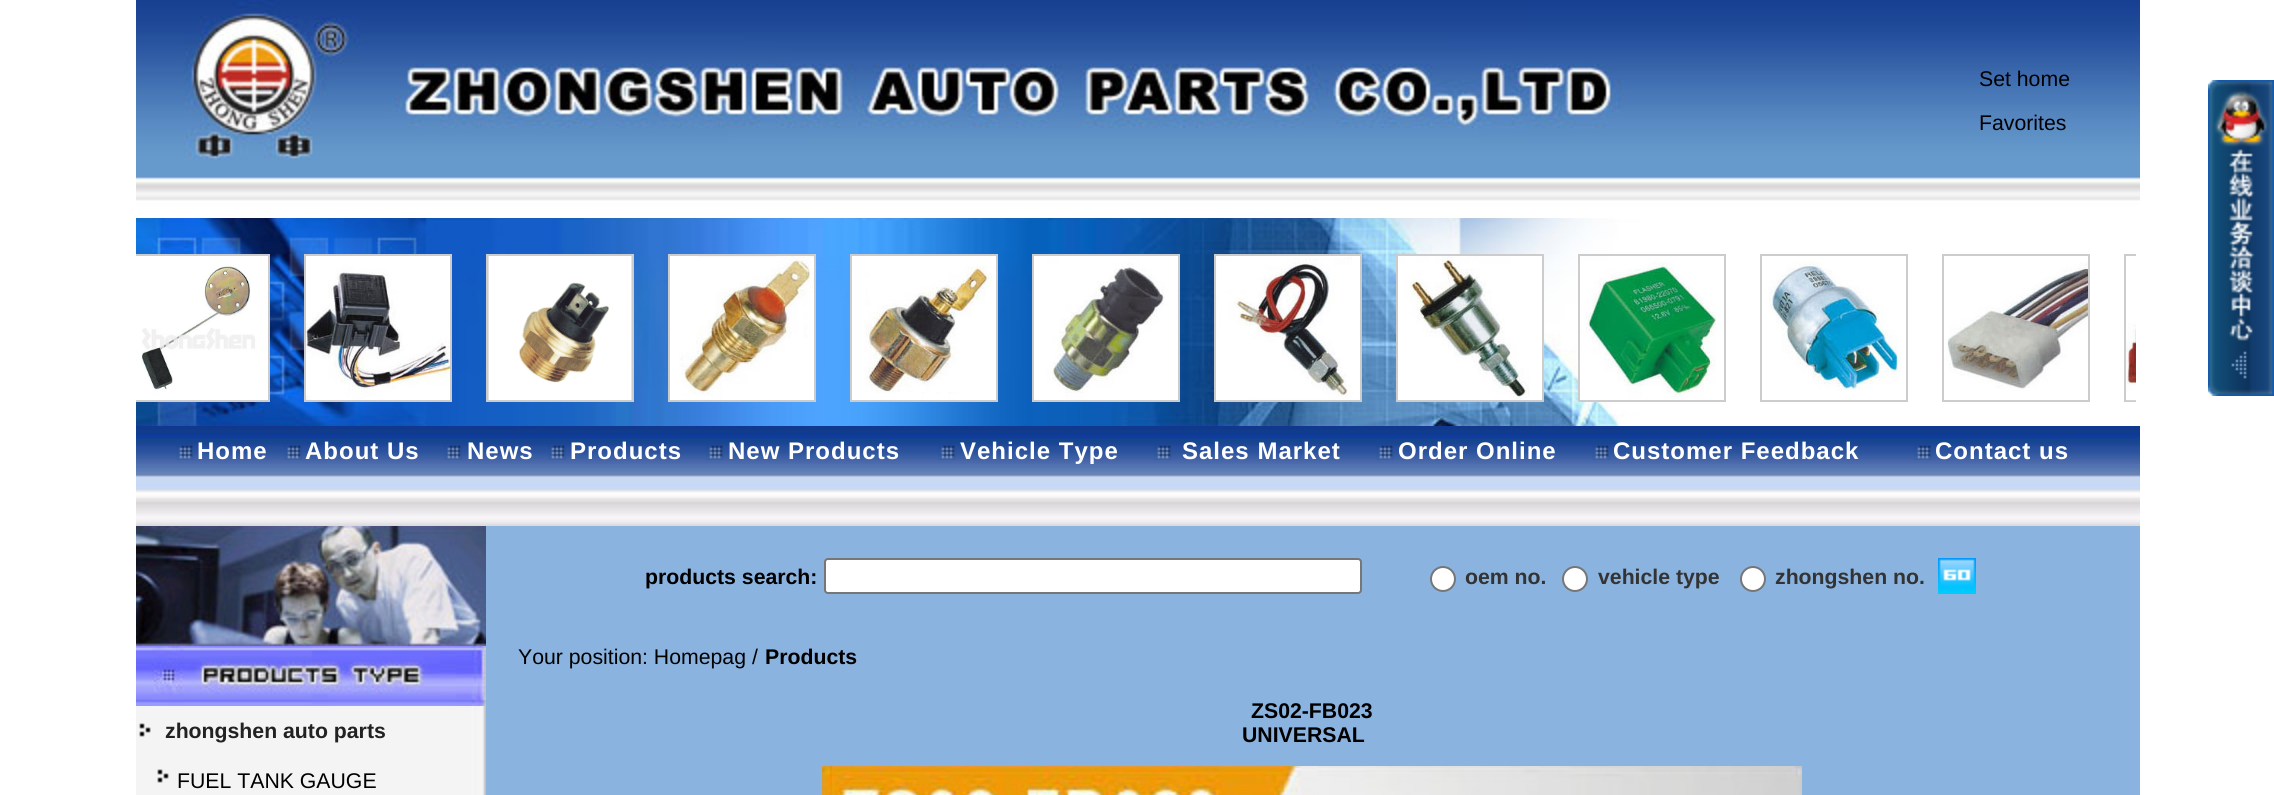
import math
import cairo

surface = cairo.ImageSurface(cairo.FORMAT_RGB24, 2274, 795)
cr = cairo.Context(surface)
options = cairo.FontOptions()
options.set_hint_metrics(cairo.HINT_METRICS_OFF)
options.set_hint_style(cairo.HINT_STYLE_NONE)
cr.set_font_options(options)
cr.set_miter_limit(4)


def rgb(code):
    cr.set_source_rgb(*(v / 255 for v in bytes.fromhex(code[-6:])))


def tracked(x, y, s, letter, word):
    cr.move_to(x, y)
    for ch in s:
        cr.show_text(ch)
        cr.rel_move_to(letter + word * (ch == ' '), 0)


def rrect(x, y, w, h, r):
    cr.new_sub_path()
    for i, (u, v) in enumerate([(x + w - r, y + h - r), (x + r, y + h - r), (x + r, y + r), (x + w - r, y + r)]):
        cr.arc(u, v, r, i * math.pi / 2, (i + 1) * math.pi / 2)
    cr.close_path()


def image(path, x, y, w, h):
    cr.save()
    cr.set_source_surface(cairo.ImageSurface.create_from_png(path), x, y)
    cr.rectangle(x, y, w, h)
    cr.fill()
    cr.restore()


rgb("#ffffff")
cr.paint()
image("img/1.png", 136, 0, 2004, 218)
image("img/2.png", 136, 218, 2004, 208)
cr.save()
cr.rectangle(136, 228, 2000, 190)
cr.clip()
cr.rectangle(123, 255, 146, 146)
rgb("#cccccc")
cr.stroke()
cr.restore()
image("img/3.png", 136, 256, 132, 144)
cr.rectangle(305, 255, 146, 146)
rgb("#cccccc")
cr.stroke()
image("img/4.png", 306, 256, 144, 144)
cr.rectangle(487, 255, 146, 146)
cr.stroke()
image("img/5.png", 488, 256, 144, 144)
cr.rectangle(669, 255, 146, 146)
cr.stroke()
image("img/6.png", 670, 256, 144, 144)
cr.rectangle(851, 255, 146, 146)
cr.stroke()
image("img/7.png", 852, 256, 144, 144)
cr.rectangle(1033, 255, 146, 146)
cr.stroke()
image("img/8.png", 1034, 256, 144, 144)
cr.rectangle(1215, 255, 146, 146)
cr.stroke()
image("img/9.png", 1216, 256, 144, 144)
cr.rectangle(1397, 255, 146, 146)
cr.stroke()
image("img/10.png", 1398, 256, 144, 144)
cr.rectangle(1579, 255, 146, 146)
cr.stroke()
image("img/11.png", 1580, 262, 136, 138)
cr.rectangle(1761, 255, 146, 146)
cr.stroke()
image("img/12.png", 1768, 260, 134, 130)
cr.rectangle(1943, 255, 146, 146)
cr.stroke()
image("img/13.png", 1946, 262, 142, 129)
cr.save()
cr.rectangle(136, 228, 2000, 190)
cr.clip()
cr.rectangle(2125, 255, 146, 146)
cr.stroke()
cr.restore()
image("img/14.png", 2126, 323, 10, 78)
image("img/15.png", 2208, 80, 66, 316)
image("img/16.png", 136, 426, 2004, 100)
image("img/17.png", 176, 445, 18, 15)
image("img/17.png", 284, 445, 18, 15)
image("img/17.png", 444, 445, 18, 15)
image("img/17.png", 548, 445, 18, 15)
image("img/17.png", 706, 445, 18, 15)
image("img/17.png", 938, 445, 18, 15)
image("img/17.png", 1154, 445, 18, 15)
image("img/17.png", 1376, 445, 18, 15)
image("img/17.png", 1592, 445, 18, 15)
image("img/17.png", 1914, 445, 18, 15)
rgb("#8ab3e0")
cr.rectangle(486, 526, 1654, 269)
cr.fill()
rgb("#ffffff")
rrect(825, 559, 536, 34, 3)
cr.fill_preserve()
rgb("#767676")
cr.stroke()
rgb("#ffffff")
cr.arc(1443, 579, 12, 0, 2 * math.pi)
cr.fill_preserve()
rgb("#767676")
cr.stroke()
rgb("#ffffff")
cr.arc(1575, 579, 12, 0, 2 * math.pi)
cr.fill_preserve()
rgb("#767676")
cr.stroke()
rgb("#ffffff")
cr.arc(1753, 579, 12, 0, 2 * math.pi)
cr.fill_preserve()
rgb("#767676")
cr.stroke()
image("img/18.png", 1938, 558, 38, 36)
image("img/19.png", 822, 766, 980, 29)
image("img/20.png", 136, 706, 350, 89)
image("img/21.png", 136, 526, 350, 120)
image("img/22.png", 136, 646, 350, 60)
image("img/23.png", 139, 723, 12, 14)
image("img/23.png", 157, 769, 12, 14)
cr.select_font_face("Liberation Sans")
cr.set_font_size(21.25)
rgb("#000000")
cr.move_to(1979, 86)
cr.show_text("Set home")
cr.move_to(1979, 130)
cr.show_text("Favorites")
cr.select_font_face("Liberation Sans", cairo.FONT_SLANT_NORMAL, cairo.FONT_WEIGHT_BOLD)
cr.set_font_size(24)
rgb("#ffffff")
for x, y, s in [
    (197, 459, "Home"),
    (305, 459, "About Us"),
    (467, 459, "News"),
    (570, 459, "Products"),
    (728, 459, "New Products"),
    (960, 459, "Vehicle Type"),
    (1182, 459, "Sales Market"),
    (1398, 459, "Order Online"),
    (1613, 459, "Customer Feedback"),
    (1935, 459, "Contact us"),
]:
    tracked(x, y, s, 1, 0)
cr.set_font_size(21.25)
rgb("#000000")
cr.move_to(645, 584)
cr.show_text("products search:")
rgb("#333333")
for x, y, s in [
    (1465, 584, "oem no."),
    (1598, 584, "vehicle type"),
    (1775, 584, "zhongshen no."),
]:
    cr.move_to(x, y)
    cr.show_text(s)
cr.select_font_face("Liberation Sans")
rgb("#000000")
cr.move_to(518, 664)
cr.show_text("Your position: Homepag /")
cr.select_font_face("Liberation Sans", cairo.FONT_SLANT_NORMAL, cairo.FONT_WEIGHT_BOLD)
for x, y, s in [
    (765, 664, "Products"),
    (1251, 718, "ZS02-FB023"),
    (1242, 742, "UNIVERSAL"),
]:
    cr.move_to(x, y)
    cr.show_text(s)
rgb("#222222")
cr.move_to(165, 738)
cr.show_text("zhongshen auto parts")
cr.select_font_face("Liberation Sans")
rgb("#000000")
cr.move_to(177, 788)
cr.show_text("FUEL TANK GAUGE")
surface.write_to_png("page.png")
